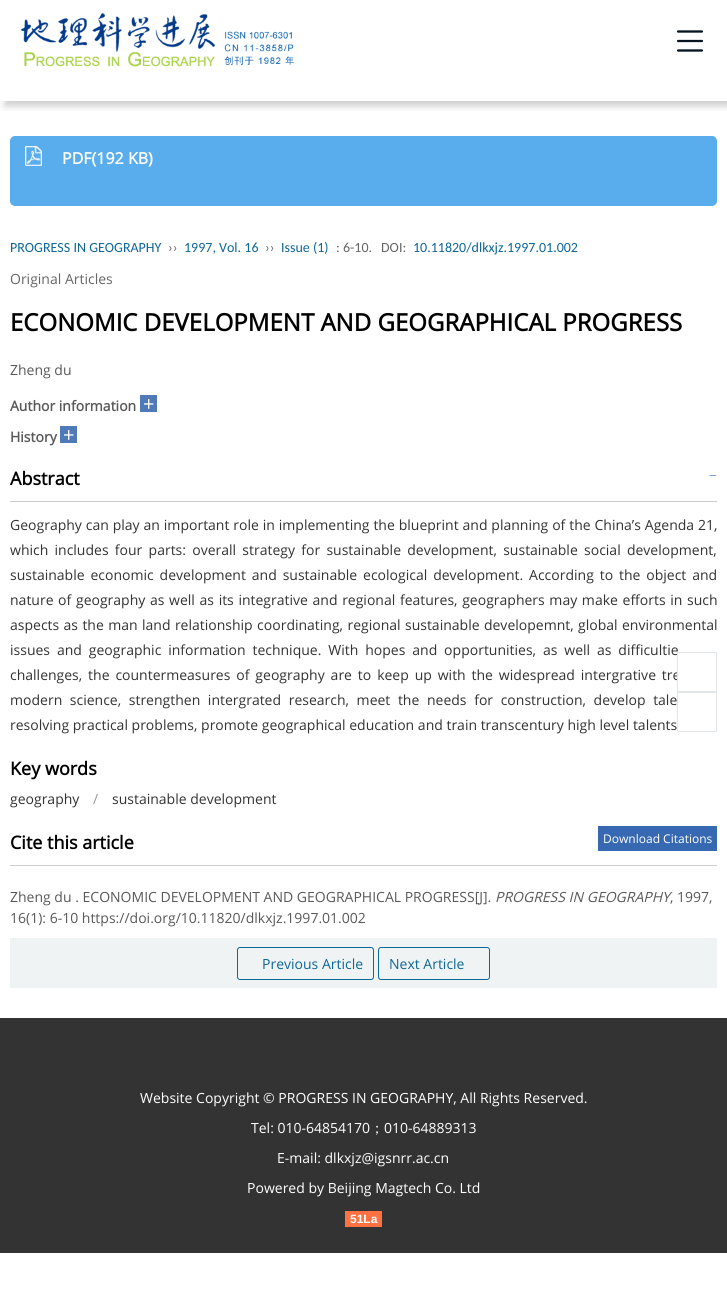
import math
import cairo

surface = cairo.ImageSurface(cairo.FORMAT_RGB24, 727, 1304)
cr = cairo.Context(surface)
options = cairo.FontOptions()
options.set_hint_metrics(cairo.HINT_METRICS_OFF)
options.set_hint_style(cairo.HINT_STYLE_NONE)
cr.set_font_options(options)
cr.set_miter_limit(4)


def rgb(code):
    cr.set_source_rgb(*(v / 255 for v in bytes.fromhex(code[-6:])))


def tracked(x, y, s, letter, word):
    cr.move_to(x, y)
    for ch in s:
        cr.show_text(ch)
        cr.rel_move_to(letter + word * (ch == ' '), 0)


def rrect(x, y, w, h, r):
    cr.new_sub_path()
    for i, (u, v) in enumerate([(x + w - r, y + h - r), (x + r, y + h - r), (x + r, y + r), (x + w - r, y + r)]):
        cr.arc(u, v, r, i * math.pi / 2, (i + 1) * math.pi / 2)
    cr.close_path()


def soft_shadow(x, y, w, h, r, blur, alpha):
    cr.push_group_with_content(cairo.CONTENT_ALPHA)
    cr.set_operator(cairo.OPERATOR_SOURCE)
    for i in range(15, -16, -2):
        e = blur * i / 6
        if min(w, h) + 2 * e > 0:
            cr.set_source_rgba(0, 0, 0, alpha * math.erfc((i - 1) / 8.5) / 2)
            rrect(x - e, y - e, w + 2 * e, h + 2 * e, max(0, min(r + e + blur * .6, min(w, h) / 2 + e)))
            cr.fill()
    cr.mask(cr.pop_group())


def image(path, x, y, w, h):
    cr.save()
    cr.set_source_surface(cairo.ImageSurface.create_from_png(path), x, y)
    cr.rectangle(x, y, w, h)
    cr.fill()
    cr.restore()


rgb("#ffffff")
cr.paint()
cr.save()
cr.rectangle(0, 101, 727, 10)
cr.clip()
rgb("#000000")
soft_shadow(5, 5, 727, 101, 0, 4, 0.2)
cr.restore()
image("img/1.png", 21, 13, 274, 54)
image("img/2.png", 677, 30, 26, 22)
rgb("#5aadec")
rrect(10, 136, 707, 70, 5)
cr.fill()
image("img/3.png", 25, 146, 17, 20)
for x, y, w, h, color in [
    (140, 395, 17, 17, "#5079b7"),
    (60, 426, 17, 17, "#5079b7"),
    (10, 501, 707, 1, "#cccccc"),
    (10, 865, 707, 1, "#cccccc"),
    (598, 826, 119, 25, "#3769b3"),
    (10, 938, 707, 50, "#f0f3f4"),
]:
    rgb(color)
    cr.rectangle(x, y, w, h)
    cr.fill()
rrect(237.5, 947.5, 136, 32, 2.5)
rgb("#0d6797")
cr.set_line_width(1)
cr.stroke()
rrect(378.5, 947.5, 111, 32, 2.5)
cr.stroke()
cr.rectangle(677.5, 692.5, 39, 39)
rgb("#e2e6e8")
cr.stroke()
rgb("#333333")
cr.rectangle(0, 1018, 727, 235)
cr.fill()
rgb("#ff7043")
cr.rectangle(345, 1211, 37, 16)
cr.fill()
cr.select_font_face("Open Sans", cairo.FONT_SLANT_NORMAL, cairo.FONT_WEIGHT_BOLD)
cr.set_font_size(16)
rgb("#ffffff")
cr.move_to(62, 164)
cr.show_text("PDF(192 KB)")
cr.select_font_face("Carlito")
cr.set_font_size(14)
rgb("#0d6797")
cr.move_to(10, 252)
cr.show_text("PROGRESS IN GEOGRAPHY")
rgb("#666666")
cr.move_to(168, 252)
cr.show_text("››")
rgb("#0d6797")
cr.move_to(184, 252)
cr.show_text("1997, Vol. 16")
rgb("#666666")
cr.move_to(265, 252)
cr.show_text("››")
rgb("#0d6797")
cr.move_to(281, 252)
cr.show_text("Issue (1)")
rgb("#666666")
cr.move_to(336, 252)
cr.show_text(": 6-10.")
cr.move_to(381, 252)
cr.show_text("DOI:")
rgb("#0d6797")
cr.move_to(413, 252)
cr.show_text("10.11820/dlkxjz.1997.01.002")
cr.select_font_face("Open Sans")
rgb("#666666")
cr.move_to(10, 284)
cr.show_text("Original Articles")
cr.select_font_face("Open Sans", cairo.FONT_SLANT_NORMAL, cairo.FONT_WEIGHT_BOLD)
cr.set_font_size(24)
rgb("#000000")
cr.move_to(10, 331)
cr.show_text("ECONOMIC DEVELOPMENT AND GEOGRAPHICAL PROGRESS")
cr.select_font_face("Open Sans")
cr.set_font_size(14)
rgb("#595959")
cr.move_to(10, 375)
cr.show_text("Zheng du")
cr.select_font_face("Open Sans", cairo.FONT_SLANT_NORMAL, cairo.FONT_WEIGHT_BOLD)
cr.move_to(10, 411)
cr.show_text("Author information")
cr.select_font_face("Open Sans")
cr.set_font_size(20)
rgb("#ffffff")
cr.move_to(143, 411)
cr.show_text("+")
cr.select_font_face("Open Sans", cairo.FONT_SLANT_NORMAL, cairo.FONT_WEIGHT_BOLD)
cr.set_font_size(14)
rgb("#595959")
cr.move_to(10, 442)
cr.show_text("History")
cr.select_font_face("Open Sans")
cr.set_font_size(20)
rgb("#ffffff")
cr.move_to(63, 442)
cr.show_text("+")
cr.select_font_face("Open Sans", cairo.FONT_SLANT_NORMAL, cairo.FONT_WEIGHT_BOLD)
cr.set_font_size(18)
rgb("#000000")
cr.move_to(10, 485)
cr.show_text("Abstract")
cr.select_font_face("Liberation Serif")
cr.set_font_size(14)
rgb("#5079b7")
cr.move_to(709, 480)
cr.show_text("−")
cr.select_font_face("Open Sans")
rgb("#333333")
tracked(10, 530, "Geography can play an important role in implementing the blueprint and planning of the China’s Agenda 21,", 0, 0.25)
tracked(10, 555, "which includes four parts: overall strategy for sustainable development, sustainable social development,", 0, 2.6)
tracked(10, 580, "sustainable economic development and sustainable ecological development. According to the object and", 0, 2.25)
tracked(10, 605, "nature of geography as well as its integrative and regional features, geographers may make efforts in such", 0, 1)
tracked(10, 630, "aspects as the man land relationship coordinating, regional sustainable developemnt, global environmental", 0, 0.75)
tracked(10, 655, "issues and geographic information technique. With hopes and opportunities, as well as difficultie", 0, 3.25)
tracked(10, 680, "challenges, the countermeasures of geography are to keep up with the widespread intergrative tre", 0, 2.25)
tracked(10, 705, "modern science, strengthen intergrated research, meet the needs for construction, develop tale", 0, 4)
cr.move_to(10, 730)
cr.show_text("resolving practical problems, promote geographical education and train transcentury high level talents")
cr.select_font_face("Open Sans", cairo.FONT_SLANT_NORMAL, cairo.FONT_WEIGHT_BOLD)
cr.set_font_size(18)
rgb("#000000")
cr.move_to(10, 775)
cr.show_text("Key words")
cr.select_font_face("Open Sans")
cr.set_font_size(14)
rgb("#333333")
cr.move_to(10, 804)
cr.show_text("geography")
rgb("#999999")
cr.move_to(93, 804)
cr.show_text("/")
rgb("#333333")
cr.move_to(112, 804)
cr.show_text("sustainable development")
cr.select_font_face("Open Sans", cairo.FONT_SLANT_NORMAL, cairo.FONT_WEIGHT_BOLD)
cr.set_font_size(18)
rgb("#000000")
cr.move_to(10, 849)
cr.show_text("Cite this article")
cr.select_font_face("Open Sans")
cr.set_font_size(12)
rgb("#ffffff")
cr.move_to(603, 843)
cr.show_text("Download Citations")
cr.set_font_size(14)
rgb("#595959")
cr.move_to(10, 902)
cr.show_text("Zheng du . ECONOMIC DEVELOPMENT AND GEOGRAPHICAL PROGRESS[J].")
cr.select_font_face("Open Sans", cairo.FONT_SLANT_ITALIC)
cr.move_to(495, 902)
cr.show_text("PROGRESS IN GEOGRAPHY")
cr.select_font_face("Open Sans")
cr.move_to(670, 902)
cr.show_text(", 1997,")
cr.move_to(10, 923)
cr.show_text("16(1): 6-10 https://doi.org/10.11820/dlkxjz.1997.01.002")
rgb("#0d6797")
cr.move_to(262, 969)
cr.show_text("Previous Article")
cr.move_to(389, 969)
cr.show_text("Next Article")
rgb("#ffffff")
cr.rectangle(678, 672, 2, 9)
cr.fill()
cr.rectangle(677.5, 652.5, 39, 39)
rgb("#e2e6e8")
cr.stroke()
rgb("#ffffff")
cr.move_to(140, 1103)
cr.show_text("Website Copyright © PROGRESS IN GEOGRAPHY, All Rights Reserved.")
cr.move_to(251, 1133)
cr.show_text("Tel: 010-64854170")
cr.select_font_face("WenQuanYi Zen Hei Medium")
cr.move_to(370, 1133)
cr.show_text("；")
cr.select_font_face("Open Sans")
for x, y, s in [
    (384, 1133, "010-64889313"),
    (277, 1163, "E-mail: dlkxjz@igsnrr.ac.cn"),
    (247, 1193, "Powered by Beijing Magtech Co. Ltd"),
]:
    cr.move_to(x, y)
    cr.show_text(s)
cr.select_font_face("Liberation Sans", cairo.FONT_SLANT_NORMAL, cairo.FONT_WEIGHT_BOLD)
cr.set_font_size(12)
cr.move_to(350, 1223)
cr.show_text("51La")
surface.write_to_png("page.png")
